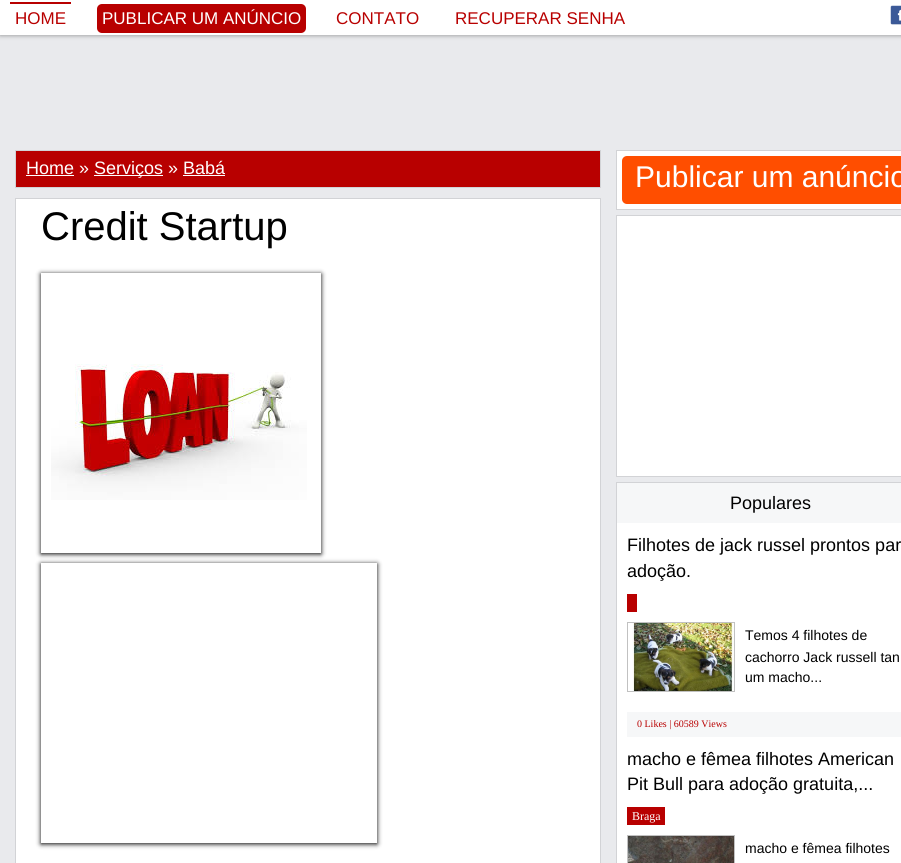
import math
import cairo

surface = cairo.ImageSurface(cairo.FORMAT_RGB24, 901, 863)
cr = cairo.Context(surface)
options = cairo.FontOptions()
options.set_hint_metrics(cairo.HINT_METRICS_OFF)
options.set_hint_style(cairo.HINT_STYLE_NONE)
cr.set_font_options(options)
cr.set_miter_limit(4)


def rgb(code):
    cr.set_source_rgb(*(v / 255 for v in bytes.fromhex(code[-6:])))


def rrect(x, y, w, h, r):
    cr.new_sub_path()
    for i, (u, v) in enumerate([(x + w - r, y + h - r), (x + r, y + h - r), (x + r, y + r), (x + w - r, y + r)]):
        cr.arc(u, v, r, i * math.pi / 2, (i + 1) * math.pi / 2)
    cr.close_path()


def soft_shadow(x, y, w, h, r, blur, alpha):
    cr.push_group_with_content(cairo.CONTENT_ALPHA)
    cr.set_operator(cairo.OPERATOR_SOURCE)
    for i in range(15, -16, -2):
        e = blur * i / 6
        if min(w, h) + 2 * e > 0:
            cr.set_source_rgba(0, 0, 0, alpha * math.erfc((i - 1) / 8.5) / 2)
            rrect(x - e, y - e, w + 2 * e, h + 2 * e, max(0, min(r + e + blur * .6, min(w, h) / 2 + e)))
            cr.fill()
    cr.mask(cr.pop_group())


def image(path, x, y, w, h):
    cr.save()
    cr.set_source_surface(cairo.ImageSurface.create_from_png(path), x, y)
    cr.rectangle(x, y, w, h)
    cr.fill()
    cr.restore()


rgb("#e9eaed")
cr.paint()
rgb("#888888")
soft_shadow(0, 0, 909, 35, 0, 2.5, 1)
rgb("#ffffff")
cr.rectangle(0, 0, 901, 35)
cr.fill()
rgb("#b80000")
cr.rectangle(10, 2, 61, 2)
cr.fill()
rrect(97, 4, 209, 29, 5)
cr.fill()
image("img/1.png", 890, 5, 11, 20)
cr.rectangle(15.5, 150.5, 585, 37)
rgb("#d2d3d6")
cr.set_line_width(1)
cr.stroke()
for x, y, w, h, color in [
    (16, 151, 584, 36, "#b80000"),
    (26, 175, 48, 1, "#ffffff"),
    (94, 175, 69, 1, "#ffffff"),
    (183, 175, 42, 1, "#ffffff"),
]:
    rgb(color)
    cr.rectangle(x, y, w, h)
    cr.fill()
cr.rectangle(15.5, 198.5, 585, 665)
cr.fill_preserve()
rgb("#d2d3d6")
cr.stroke()
cr.save()
cr.set_fill_rule(cairo.FILL_RULE_EVEN_ODD)
cr.new_path()
cr.move_to(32, 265)
cr.line_to(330, 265)
cr.line_to(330, 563)
cr.line_to(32, 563)
cr.close_path()
cr.move_to(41, 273)
cr.line_to(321, 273)
cr.line_to(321, 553)
cr.line_to(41, 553)
cr.close_path()
cr.clip()
rgb("#000000")
soft_shadow(41, 274, 280, 280, 0, 2.5, 1)
cr.restore()
image("img/2.png", 51, 364, 256, 136)
cr.save()
cr.set_fill_rule(cairo.FILL_RULE_EVEN_ODD)
cr.new_path()
cr.move_to(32, 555)
cr.line_to(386, 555)
cr.line_to(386, 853)
cr.line_to(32, 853)
cr.close_path()
cr.move_to(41, 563)
cr.line_to(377, 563)
cr.line_to(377, 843)
cr.line_to(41, 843)
cr.close_path()
cr.clip()
rgb("#000000")
soft_shadow(41, 564, 336, 280, 0, 2.5, 1)
cr.restore()
cr.rectangle(616.5, 150.5, 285, 59)
cr.stroke()
rgb("#ffffff")
cr.rectangle(617, 151, 284, 58)
cr.fill()
rgb("#ff4e00")
rrect(622, 156, 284, 48, 5)
cr.fill()
rgb("#ffffff")
cr.rectangle(616.5, 215.5, 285, 261)
cr.fill_preserve()
rgb("#d2d3d6")
cr.stroke()
cr.rectangle(616.5, 482.5, 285, 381)
cr.stroke()
for x, y, w, h, color in [
    (617, 523, 284, 340, "#ffffff"),
    (617, 483, 284, 40, "#f6f7f8"),
    (627, 594, 10, 18, "#b80000"),
]:
    rgb(color)
    cr.rectangle(x, y, w, h)
    cr.fill()
cr.rectangle(627.5, 622.5, 107, 69)
rgb("#c1c1c1")
cr.stroke()
image("img/3.png", 632, 623, 102, 68)
rgb("#f6f7f8")
cr.rectangle(627, 712, 274, 25)
cr.fill()
rgb("#b80000")
cr.rectangle(627, 807, 38, 18)
cr.fill()
cr.rectangle(627.5, 835.5, 107, 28)
rgb("#c1c1c1")
cr.stroke()
image("img/4.png", 628, 836, 106, 27)
cr.select_font_face("Liberation Sans")
cr.set_font_size(17)
rgb("#b80000")
cr.move_to(15, 24)
cr.show_text("HOME")
rgb("#ffffff")
cr.move_to(102, 24)
cr.show_text("PUBLICAR UM ANÚNCIO")
rgb("#b80000")
cr.move_to(336, 24)
cr.show_text("CONTATO")
cr.move_to(455, 24)
cr.show_text("RECUPERAR SENHA")
cr.set_font_size(18)
rgb("#ffffff")
cr.move_to(26, 174)
cr.show_text("Home »")
cr.move_to(94, 174)
cr.show_text("Serviços » Babá")
cr.set_font_size(40)
rgb("#000000")
cr.move_to(41, 240)
cr.show_text("Credit Startup")
cr.set_font_size(30)
rgb("#ffffff")
cr.move_to(635, 187)
cr.show_text("Publicar um anúncio")
cr.set_font_size(18)
rgb("#000000")
for x, y, s in [
    (730, 509, "Populares"),
    (627, 551, "Filhotes de jack russel prontos par"),
    (627, 577, "adoção."),
]:
    cr.move_to(x, y)
    cr.show_text(s)
cr.set_font_size(14)
for x, y, s in [
    (745, 640, "Temos 4 filhotes de"),
    (745, 662, "cachorro Jack russell tan"),
    (745, 682, "um macho..."),
]:
    cr.move_to(x, y)
    cr.show_text(s)
cr.select_font_face("Liberation Serif")
cr.set_font_size(10)
rgb("#b80000")
cr.move_to(637, 727)
cr.show_text("0 Likes | 60589 Views")
cr.select_font_face("Liberation Sans")
cr.set_font_size(18)
rgb("#000000")
cr.move_to(627, 765)
cr.show_text("macho e fêmea filhotes American")
cr.move_to(627, 790)
cr.show_text("Pit Bull para adoção gratuita,...")
cr.select_font_face("Liberation Serif")
cr.set_font_size(12)
rgb("#ffffff")
cr.move_to(632, 820)
cr.show_text("Braga")
cr.select_font_face("Liberation Sans")
cr.set_font_size(14)
rgb("#000000")
cr.move_to(745, 853)
cr.show_text("macho e fêmea filhotes")
surface.write_to_png("page.png")
